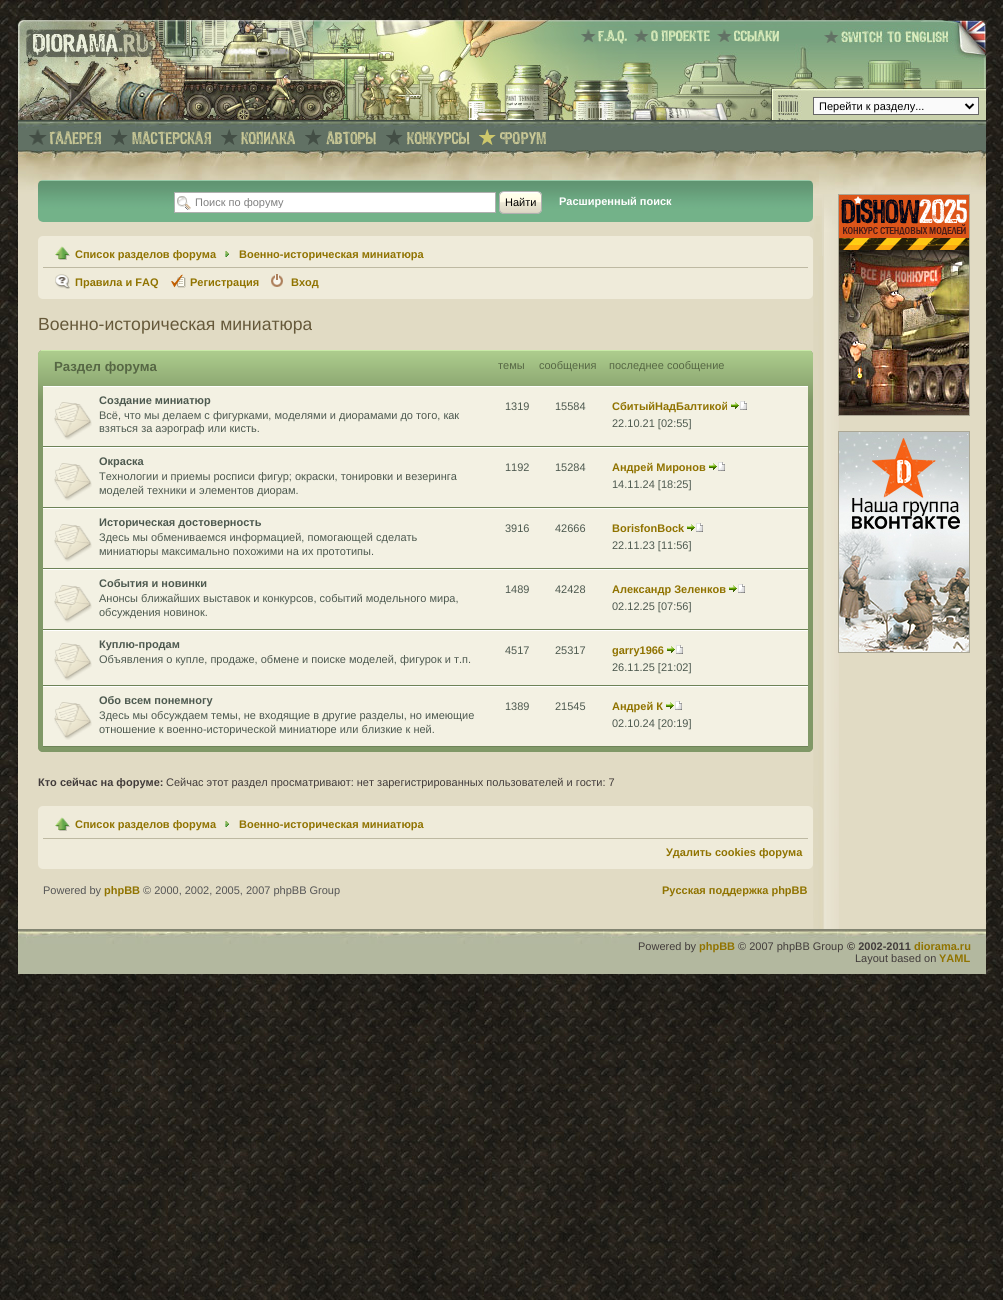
import math
import cairo

surface = cairo.ImageSurface(cairo.FORMAT_RGB24, 1003, 1300)
cr = cairo.Context(surface)
options = cairo.FontOptions()
options.set_hint_metrics(cairo.HINT_METRICS_OFF)
options.set_hint_style(cairo.HINT_STYLE_NONE)
cr.set_font_options(options)
cr.set_miter_limit(4)


def rgb(code):
    cr.set_source_rgb(*(v / 255 for v in bytes.fromhex(code[-6:])))


def rrect(x, y, w, h, r):
    cr.new_sub_path()
    for i, (u, v) in enumerate([(x + w - r, y + h - r), (x + r, y + h - r), (x + r, y + r), (x + w - r, y + r)]):
        cr.arc(u, v, r, i * math.pi / 2, (i + 1) * math.pi / 2)
    cr.close_path()


def image(path, x, y, w, h):
    cr.save()
    cr.set_source_surface(cairo.ImageSurface.create_from_png(path), x, y)
    cr.rectangle(x, y, w, h)
    cr.fill()
    cr.restore()


rgb("#ffffff")
cr.paint()
image("img/1.png", 0, 0, 1003, 1300)
rgb("#e1dbc4")
cr.rectangle(18, 194, 968, 735)
cr.fill()
image("img/2.png", 18, 20, 968, 100)
image("img/3.png", 581, 29, 15, 14)
image("img/4.png", 598, 30, 29, 14)
image("img/5.png", 634, 29, 15, 14)
image("img/6.png", 651, 30, 59, 12)
image("img/7.png", 717, 29, 15, 14)
image("img/8.png", 734, 30, 45, 12)
image("img/9.png", 824, 30, 15, 14)
image("img/10.png", 841, 20, 145, 39)
rgb("#fafafa")
cr.rectangle(813.5, 97.5, 165, 17)
cr.fill_preserve()
rgb("#666666")
cr.set_line_width(1)
cr.stroke()
cr.new_path()
cr.move_to(965.5, 104)
cr.line_to(969.5, 108)
cr.line_to(973.5, 104)
rgb("#000000")
cr.set_line_width(2)
cr.stroke()
rgb("#617164")
cr.rectangle(18, 130, 968, 20)
cr.fill()
image("img/11.png", 18, 120, 968, 10)
image("img/12.png", 29, 129, 18, 16)
image("img/13.png", 49, 131, 52, 14)
image("img/14.png", 110, 128, 18, 17)
image("img/15.png", 132, 131, 79, 14)
image("img/16.png", 221, 128, 17, 17)
image("img/17.png", 241, 131, 54, 14)
image("img/18.png", 305, 129, 17, 16)
image("img/19.png", 326, 131, 50, 14)
image("img/18.png", 386, 129, 17, 16)
image("img/20.png", 407, 131, 63, 14)
image("img/21.png", 479, 129, 17, 16)
image("img/22.png", 500, 131, 46, 14)
image("img/23.png", 813, 194, 26, 735)
image("img/24.png", 18, 150, 968, 44)
image("img/25.png", 810, 194, 13, 62)
image("img/26.png", 38, 180, 775, 42)
rgb("#ffffff")
cr.rectangle(175, 193, 320, 19)
cr.fill()
image("img/27.png", 177, 196, 14, 14)
cr.rectangle(174.5, 192.5, 321, 20)
rgb("#b0b0b0")
cr.set_line_width(1)
cr.stroke()
image("img/28.png", 499, 192, 43, 22)
rrect(499.5, 191.5, 42, 22, 4.5)
cr.stroke()
rgb("#efebda")
rrect(38, 236, 775, 63, 5)
cr.fill()
rgb("#beb9a2")
cr.rectangle(43, 267, 765, 1)
cr.fill()
image("img/29.png", 55, 246, 15, 14)
image("img/30.png", 225, 251, 4, 6)
image("img/31.png", 55, 274, 15, 15)
image("img/32.png", 171, 274, 15, 14)
image("img/33.png", 271, 274, 12, 13)
rgb("#809867")
rrect(38, 350, 775, 402, 5)
cr.fill()
cr.save()
rrect(38, 350, 775, 402, 5)
cr.clip()
gradient = cairo.LinearGradient(38, 351, 38, 401)
gradient.add_color_stop_rgba(0, 0.678, 0.804, 0.553, 1)
gradient.add_color_stop_rgba(1, 0.502, 0.596, 0.404, 1)
cr.set_source(gradient)
cr.new_path()
cr.move_to(38, 351)
cr.line_to(813, 351)
cr.line_to(813, 747)
cr.curve_to(813, 750, 811, 752, 808, 752)
cr.line_to(43, 752)
cr.curve_to(40, 752, 38, 750, 38, 747)
cr.close_path()
cr.fill()
cr.restore()
for x, y, w, h, color in [
    (41, 350, 770, 1, "#c8eaa7"),
    (43, 387, 765, 359, "#f3f1e3"),
    (43, 386, 765, 1, "#ffffff"),
    (43, 446, 765, 1, "#6d8357"),
]:
    rgb(color)
    cr.rectangle(x, y, w, h)
    cr.fill()
image("img/34.png", 54, 402, 38, 38)
image("img/35.png", 731, 401, 16, 9)
rgb("#ffffff")
cr.rectangle(43, 447, 765, 1)
cr.fill()
rgb("#6d8357")
cr.rectangle(43, 507, 765, 1)
cr.fill()
image("img/34.png", 54, 463, 38, 38)
image("img/35.png", 709, 462, 16, 9)
rgb("#ffffff")
cr.rectangle(43, 508, 765, 1)
cr.fill()
rgb("#6d8357")
cr.rectangle(43, 568, 765, 1)
cr.fill()
image("img/34.png", 54, 524, 38, 38)
image("img/35.png", 687, 523, 16, 9)
rgb("#ffffff")
cr.rectangle(43, 569, 765, 1)
cr.fill()
rgb("#6d8357")
cr.rectangle(43, 629, 765, 1)
cr.fill()
image("img/34.png", 54, 585, 38, 38)
image("img/35.png", 729, 584, 16, 9)
rgb("#ffffff")
cr.rectangle(43, 630, 765, 1)
cr.fill()
rgb("#6d8357")
cr.rectangle(43, 685, 765, 1)
cr.fill()
image("img/34.png", 54, 643, 38, 38)
image("img/35.png", 667, 645, 16, 9)
rgb("#ffffff")
cr.rectangle(43, 686, 765, 1)
cr.fill()
rgb("#6d8357")
cr.rectangle(43, 746, 765, 1)
cr.fill()
image("img/34.png", 54, 702, 38, 38)
image("img/35.png", 666, 701, 16, 9)
rgb("#efebda")
rrect(38, 806, 775, 63, 5)
cr.fill()
rgb("#beb9a2")
cr.rectangle(43, 838, 765, 1)
cr.fill()
image("img/29.png", 55, 817, 15, 14)
image("img/30.png", 225, 821, 4, 6)
image("img/36.png", 824, 194, 14, 62)
cr.rectangle(838.5, 194.5, 131, 221)
rgb("#aba795")
cr.stroke()
image("img/37.png", 839, 195, 130, 220)
cr.rectangle(838.5, 431.5, 131, 221)
cr.stroke()
image("img/38.png", 839, 432, 130, 220)
rgb("#b3b89f")
cr.rectangle(18, 944, 968, 30)
cr.fill()
image("img/39.png", 18, 930, 968, 14)
rgb("#828472")
cr.rectangle(18, 929, 968, 1)
cr.fill()
cr.select_font_face("Liberation Sans")
cr.set_font_size(11)
rgb("#000000")
cr.move_to(819, 110)
cr.show_text("Перейти к разделу...")
cr.save()
cr.rectangle(195, 196, 300, 12)
cr.clip()
rgb("#808080")
cr.move_to(195, 206)
cr.show_text("Поиск по форуму")
cr.restore()
cr.move_to(505, 206)
cr.show_text("Найти")
cr.select_font_face("Liberation Sans", cairo.FONT_SLANT_NORMAL, cairo.FONT_WEIGHT_BOLD)
rgb("#ffffff")
cr.move_to(559, 205)
cr.show_text("Расширенный поиск")
rgb("#907300")
for x, y, s in [
    (75, 258, "Список разделов форума"),
    (239, 258, "Военно-историческая миниатюра"),
    (75, 286, "Правила и FAQ"),
    (190, 286, "Регистрация"),
    (291, 286, "Вход"),
]:
    cr.move_to(x, y)
    cr.show_text(s)
cr.select_font_face("Liberation Sans")
cr.set_font_size(17.6)
rgb("#66593a")
cr.move_to(38, 330)
cr.show_text("Военно-историческая миниатюра")
cr.select_font_face("Liberation Sans", cairo.FONT_SLANT_NORMAL, cairo.FONT_WEIGHT_BOLD)
cr.set_font_size(13.25)
rgb("#566744")
cr.move_to(54, 371)
cr.show_text("Раздел форума")
cr.select_font_face("Liberation Sans")
cr.set_font_size(11)
for x, y, s in [
    (498, 369, "темы"),
    (539, 369, "сообщения"),
    (609, 369, "последнее сообщение"),
]:
    cr.move_to(x, y)
    cr.show_text(s)
cr.select_font_face("Liberation Sans", cairo.FONT_SLANT_NORMAL, cairo.FONT_WEIGHT_BOLD)
rgb("#4d594f")
cr.move_to(99, 404)
cr.show_text("Создание миниатюр")
cr.select_font_face("Liberation Sans")
for x, y, s in [
    (99, 419, "Всё, что мы делаем с фигурками, моделями и диорамами до того, как"),
    (99, 432, "взяться за аэрограф или кисть."),
    (505, 410, "1319"),
    (555, 410, "15584"),
]:
    cr.move_to(x, y)
    cr.show_text(s)
cr.select_font_face("Liberation Sans", cairo.FONT_SLANT_NORMAL, cairo.FONT_WEIGHT_BOLD)
rgb("#907300")
cr.move_to(612, 410)
cr.show_text("СбитыйНадБалтикой")
cr.select_font_face("Liberation Sans")
rgb("#4d594f")
cr.move_to(612, 427)
cr.show_text("22.10.21 [02:55]")
cr.select_font_face("Liberation Sans", cairo.FONT_SLANT_NORMAL, cairo.FONT_WEIGHT_BOLD)
cr.move_to(99, 465)
cr.show_text("Окраска")
cr.select_font_face("Liberation Sans")
for x, y, s in [
    (99, 480, "Технологии и приемы росписи фигур; окраски, тонировки и везеринга"),
    (99, 494, "моделей техники и элементов диорам."),
    (505, 471, "1192"),
    (555, 471, "15284"),
]:
    cr.move_to(x, y)
    cr.show_text(s)
cr.select_font_face("Liberation Sans", cairo.FONT_SLANT_NORMAL, cairo.FONT_WEIGHT_BOLD)
rgb("#907300")
cr.move_to(612, 471)
cr.show_text("Андрей Миронов")
cr.select_font_face("Liberation Sans")
rgb("#4d594f")
cr.move_to(612, 488)
cr.show_text("14.11.24 [18:25]")
cr.select_font_face("Liberation Sans", cairo.FONT_SLANT_NORMAL, cairo.FONT_WEIGHT_BOLD)
cr.move_to(99, 526)
cr.show_text("Историческая достоверность")
cr.select_font_face("Liberation Sans")
for x, y, s in [
    (99, 541, "Здесь мы обмениваемся информацией, помогающей сделать"),
    (99, 555, "миниатюры максимально похожими на их прототипы."),
    (505, 532, "3916"),
    (555, 532, "42666"),
]:
    cr.move_to(x, y)
    cr.show_text(s)
cr.select_font_face("Liberation Sans", cairo.FONT_SLANT_NORMAL, cairo.FONT_WEIGHT_BOLD)
rgb("#907300")
cr.move_to(612, 532)
cr.show_text("BorisfonBock")
cr.select_font_face("Liberation Sans")
rgb("#4d594f")
cr.move_to(612, 549)
cr.show_text("22.11.23 [11:56]")
cr.select_font_face("Liberation Sans", cairo.FONT_SLANT_NORMAL, cairo.FONT_WEIGHT_BOLD)
cr.move_to(99, 587)
cr.show_text("События и новинки")
cr.select_font_face("Liberation Sans")
for x, y, s in [
    (99, 602, "Анонсы ближайших выставок и конкурсов, событий модельного мира,"),
    (99, 616, "обсуждения новинок."),
    (505, 593, "1489"),
    (555, 593, "42428"),
]:
    cr.move_to(x, y)
    cr.show_text(s)
cr.select_font_face("Liberation Sans", cairo.FONT_SLANT_NORMAL, cairo.FONT_WEIGHT_BOLD)
rgb("#907300")
cr.move_to(612, 593)
cr.show_text("Александр Зеленков")
cr.select_font_face("Liberation Sans")
rgb("#4d594f")
cr.move_to(612, 610)
cr.show_text("02.12.25 [07:56]")
cr.select_font_face("Liberation Sans", cairo.FONT_SLANT_NORMAL, cairo.FONT_WEIGHT_BOLD)
cr.move_to(99, 648)
cr.show_text("Куплю-продам")
cr.select_font_face("Liberation Sans")
for x, y, s in [
    (99, 663, "Объявления о купле, продаже, обмене и поиске моделей, фигурок и т.п."),
    (505, 654, "4517"),
    (555, 654, "25317"),
]:
    cr.move_to(x, y)
    cr.show_text(s)
cr.select_font_face("Liberation Sans", cairo.FONT_SLANT_NORMAL, cairo.FONT_WEIGHT_BOLD)
rgb("#907300")
cr.move_to(612, 654)
cr.show_text("garry1966")
cr.select_font_face("Liberation Sans")
rgb("#4d594f")
cr.move_to(612, 671)
cr.show_text("26.11.25 [21:02]")
cr.select_font_face("Liberation Sans", cairo.FONT_SLANT_NORMAL, cairo.FONT_WEIGHT_BOLD)
cr.move_to(99, 704)
cr.show_text("Обо всем понемногу")
cr.select_font_face("Liberation Sans")
for x, y, s in [
    (99, 719, "Здесь мы обсуждаем темы, не входящие в другие разделы, но имеющие"),
    (99, 733, "отношение к военно-исторической миниатюре или близкие к ней."),
    (505, 710, "1389"),
    (555, 710, "21545"),
]:
    cr.move_to(x, y)
    cr.show_text(s)
cr.select_font_face("Liberation Sans", cairo.FONT_SLANT_NORMAL, cairo.FONT_WEIGHT_BOLD)
rgb("#907300")
cr.move_to(612, 710)
cr.show_text("Андрей К")
cr.select_font_face("Liberation Sans")
rgb("#4d594f")
cr.move_to(612, 727)
cr.show_text("02.10.24 [20:19]")
cr.select_font_face("Liberation Sans", cairo.FONT_SLANT_NORMAL, cairo.FONT_WEIGHT_BOLD)
rgb("#423c3b")
cr.move_to(38, 786)
cr.show_text("Кто сейчас на форуме:")
cr.select_font_face("Liberation Sans")
cr.move_to(166, 786)
cr.show_text("Сейчас этот раздел просматривают: нет зарегистрированных пользователей и гости: 7")
cr.select_font_face("Liberation Sans", cairo.FONT_SLANT_NORMAL, cairo.FONT_WEIGHT_BOLD)
rgb("#907300")
for x, y, s in [
    (75, 828, "Список разделов форума"),
    (239, 828, "Военно-историческая миниатюра"),
    (666, 856, "Удалить cookies форума"),
]:
    cr.move_to(x, y)
    cr.show_text(s)
cr.select_font_face("Liberation Sans")
rgb("#555555")
cr.move_to(43, 894)
cr.show_text("Powered by")
cr.select_font_face("Liberation Sans", cairo.FONT_SLANT_NORMAL, cairo.FONT_WEIGHT_BOLD)
rgb("#907300")
cr.move_to(104, 894)
cr.show_text("phpBB")
cr.select_font_face("Liberation Sans")
rgb("#555555")
cr.move_to(143, 894)
cr.show_text("© 2000, 2002, 2005, 2007 phpBB Group")
cr.select_font_face("Liberation Sans", cairo.FONT_SLANT_NORMAL, cairo.FONT_WEIGHT_BOLD)
rgb("#907300")
cr.move_to(662, 894)
cr.show_text("Русская поддержка phpBB")
cr.select_font_face("Liberation Sans")
rgb("#423c3b")
cr.move_to(638, 950)
cr.show_text("Powered by")
cr.select_font_face("Liberation Sans", cairo.FONT_SLANT_NORMAL, cairo.FONT_WEIGHT_BOLD)
rgb("#907300")
cr.move_to(699, 950)
cr.show_text("phpBB")
cr.select_font_face("Liberation Sans")
rgb("#423c3b")
cr.move_to(738, 950)
cr.show_text("© 2007 phpBB Group")
cr.select_font_face("Liberation Sans", cairo.FONT_SLANT_NORMAL, cairo.FONT_WEIGHT_BOLD)
cr.move_to(847, 950)
cr.show_text("© 2002-2011")
rgb("#907300")
cr.move_to(914, 950)
cr.show_text("diorama.ru")
cr.select_font_face("Liberation Sans")
rgb("#423c3b")
cr.move_to(855, 962)
cr.show_text("Layout based on")
cr.select_font_face("Liberation Sans", cairo.FONT_SLANT_NORMAL, cairo.FONT_WEIGHT_BOLD)
rgb("#907300")
cr.move_to(939, 962)
cr.show_text("YAML")
surface.write_to_png("page.png")
